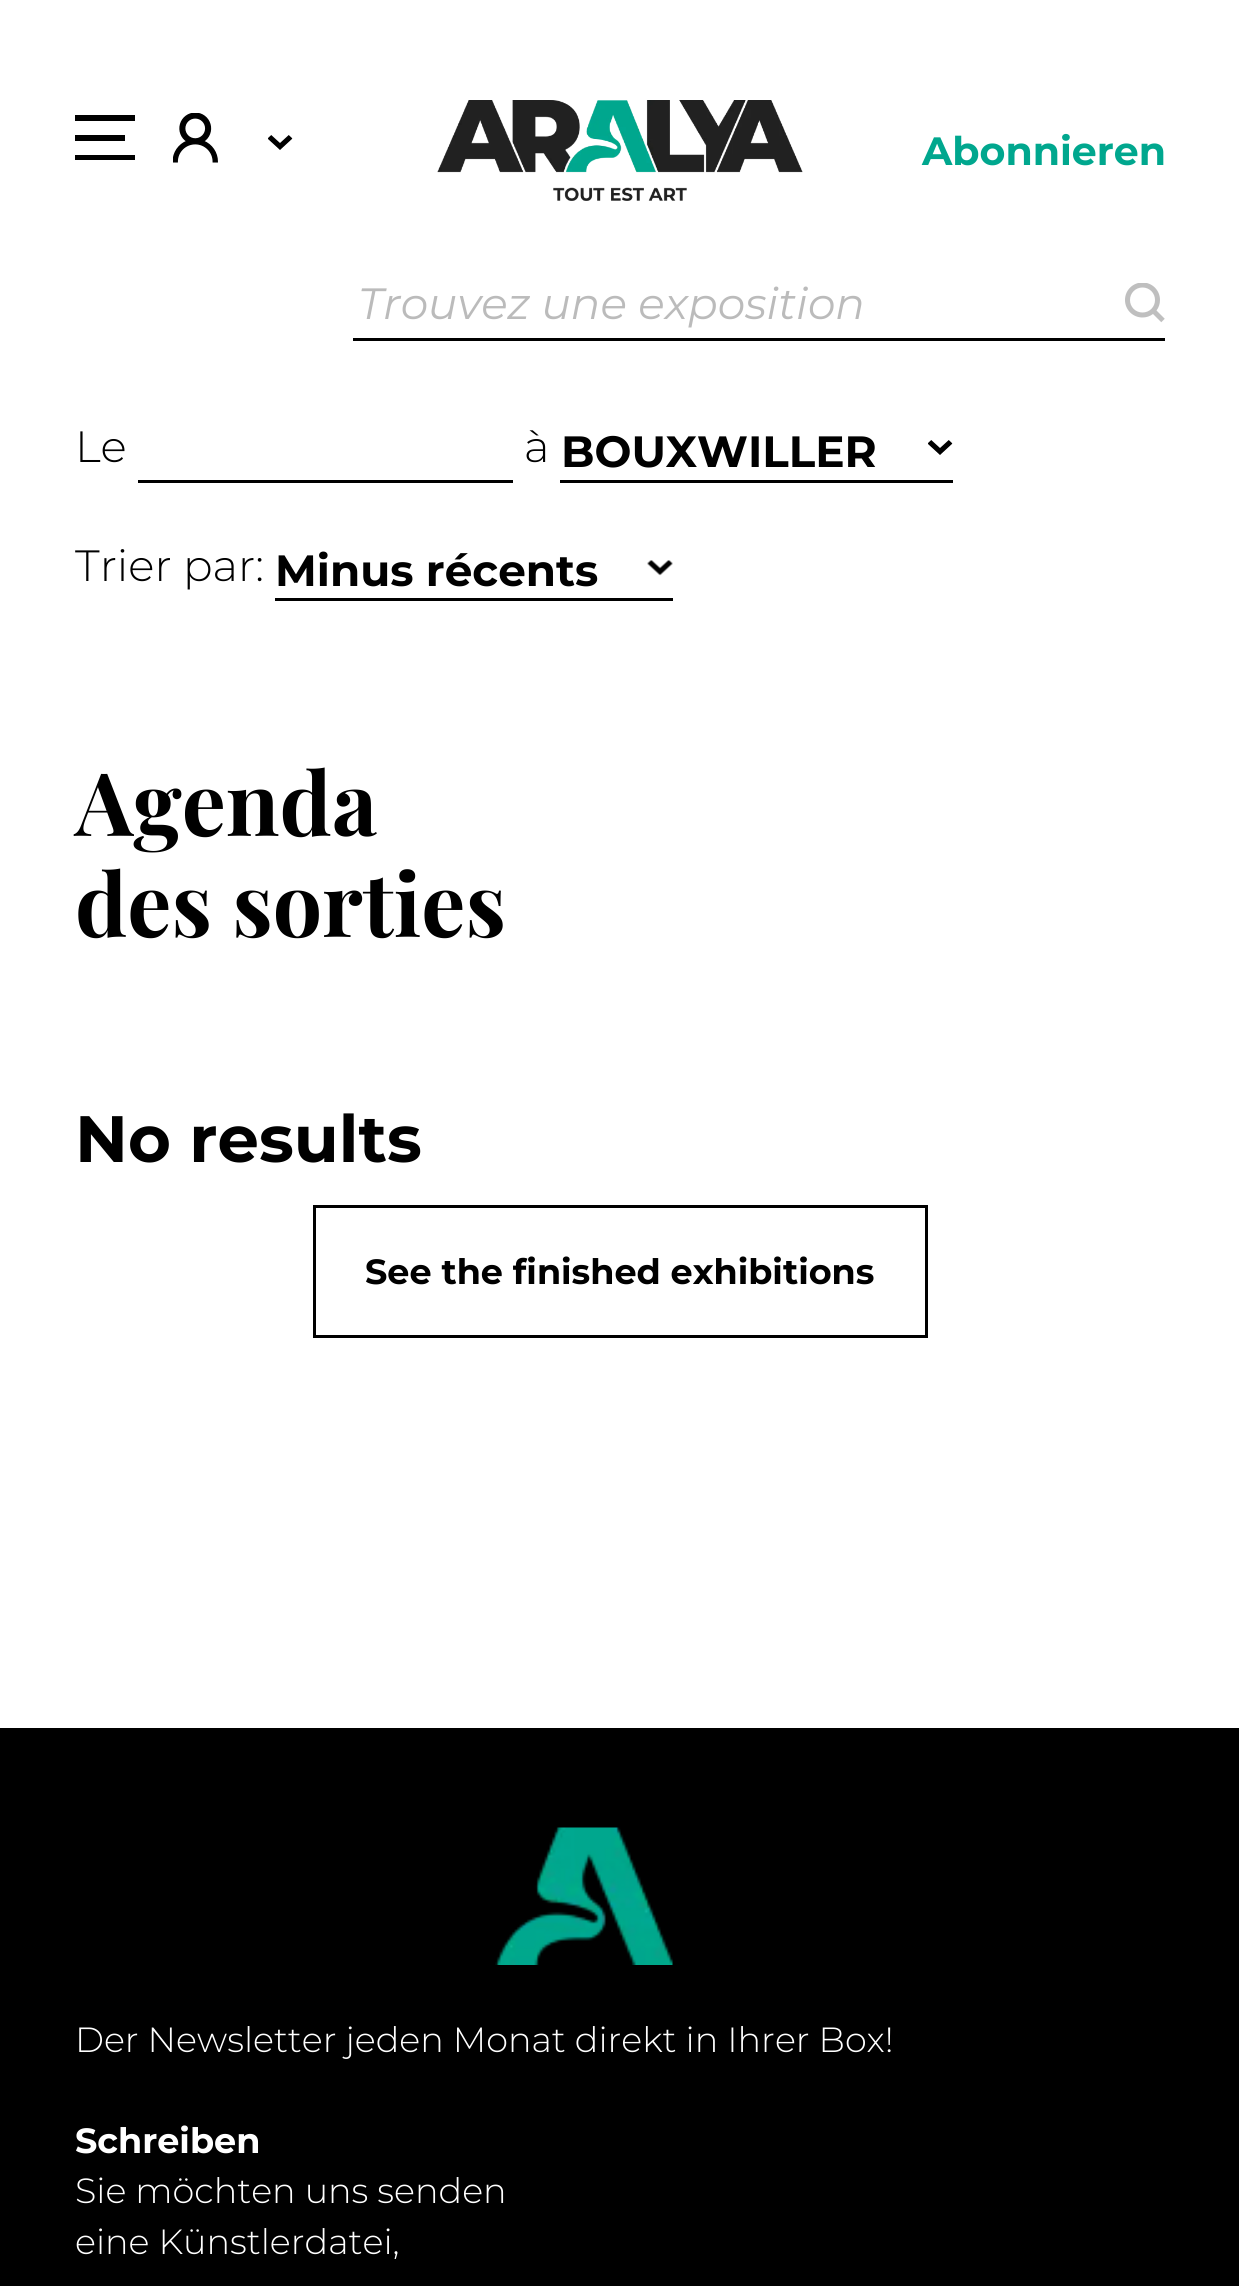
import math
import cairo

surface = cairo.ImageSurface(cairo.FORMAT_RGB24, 1239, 2286)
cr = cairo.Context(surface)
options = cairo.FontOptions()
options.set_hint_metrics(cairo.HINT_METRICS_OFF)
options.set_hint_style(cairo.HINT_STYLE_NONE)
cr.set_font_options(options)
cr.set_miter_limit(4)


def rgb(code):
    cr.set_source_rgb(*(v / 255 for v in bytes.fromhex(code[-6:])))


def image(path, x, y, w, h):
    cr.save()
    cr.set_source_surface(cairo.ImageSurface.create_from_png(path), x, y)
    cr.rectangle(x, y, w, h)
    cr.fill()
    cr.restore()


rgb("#ffffff")
cr.paint()
for x, y, w, h, color in [
    (75, 115, 60, 6, "#000000"),
    (75, 135, 50, 6, "#000000"),
    (75, 155, 60, 5, "#000000"),
]:
    rgb(color)
    cr.rectangle(x, y, w, h)
    cr.fill()
image("img/1.png", 173, 113, 45, 50)
image("img/2.png", 268, 135, 25, 15)
image("img/3.png", 437, 100, 366, 101)
image("img/4.png", 1125, 283, 40, 40)
cr.rectangle(353, 338, 812, 3)
cr.fill()
image("img/2.png", 928, 440, 25, 15)
cr.rectangle(560, 480, 393, 3)
cr.fill()
cr.rectangle(138, 480, 375, 3)
cr.fill()
image("img/5.png", 647, 560, 26, 16)
cr.rectangle(275, 598, 398, 3)
cr.fill()
cr.rectangle(314.5, 1206.5, 612, 130)
cr.set_line_width(3)
cr.stroke()
cr.rectangle(0, 1728, 1239, 558)
cr.fill()
image("img/6.png", 495, 1827, 178, 138)
cr.select_font_face("Montserrat", cairo.FONT_SLANT_NORMAL, cairo.FONT_WEIGHT_BOLD)
cr.set_font_size(39.5)
rgb("#00a78e")
cr.move_to(922, 165)
cr.show_text("Abonnieren")
cr.select_font_face("Montserrat", cairo.FONT_SLANT_ITALIC)
cr.set_font_size(43.75)
rgb("#bbbbbb")
cr.move_to(358, 319)
cr.show_text("Trouvez une exposition")
cr.select_font_face("Montserrat Light")
rgb("#000000")
cr.move_to(75, 462)
cr.show_text("Le")
cr.move_to(524, 462)
cr.show_text("à")
cr.select_font_face("Montserrat", cairo.FONT_SLANT_NORMAL, cairo.FONT_WEIGHT_BOLD)
cr.move_to(561, 467)
cr.show_text("BOUXWILLER")
cr.select_font_face("Montserrat Light")
cr.move_to(75, 581)
cr.show_text("Trier par:")
cr.select_font_face("Montserrat", cairo.FONT_SLANT_NORMAL, cairo.FONT_WEIGHT_BOLD)
cr.move_to(275, 586)
cr.show_text("Minus récents")
cr.select_font_face("Playfair Display", cairo.FONT_SLANT_NORMAL, cairo.FONT_WEIGHT_BOLD)
cr.set_font_size(87.5)
cr.move_to(75, 836)
cr.show_text("Agenda")
cr.move_to(75, 937)
cr.show_text("des sorties")
cr.select_font_face("Montserrat", cairo.FONT_SLANT_NORMAL, cairo.FONT_WEIGHT_BOLD)
cr.set_font_size(65.5)
cr.move_to(75, 1162)
cr.show_text("No results")
cr.set_font_size(35)
cr.move_to(365, 1284)
cr.show_text("See the finished exhibitions")
cr.select_font_face("Montserrat Light")
rgb("#ffffff")
cr.move_to(75, 2052)
cr.show_text("Der Newsletter jeden Monat direkt in Ihrer Box!")
cr.select_font_face("Montserrat", cairo.FONT_SLANT_NORMAL, cairo.FONT_WEIGHT_BOLD)
cr.move_to(75, 2153)
cr.show_text("Schreiben")
cr.select_font_face("Montserrat Light")
cr.move_to(75, 2203)
cr.show_text("Sie möchten uns senden")
cr.move_to(75, 2254)
cr.show_text("eine Künstlerdatei,")
surface.write_to_png("page.png")
